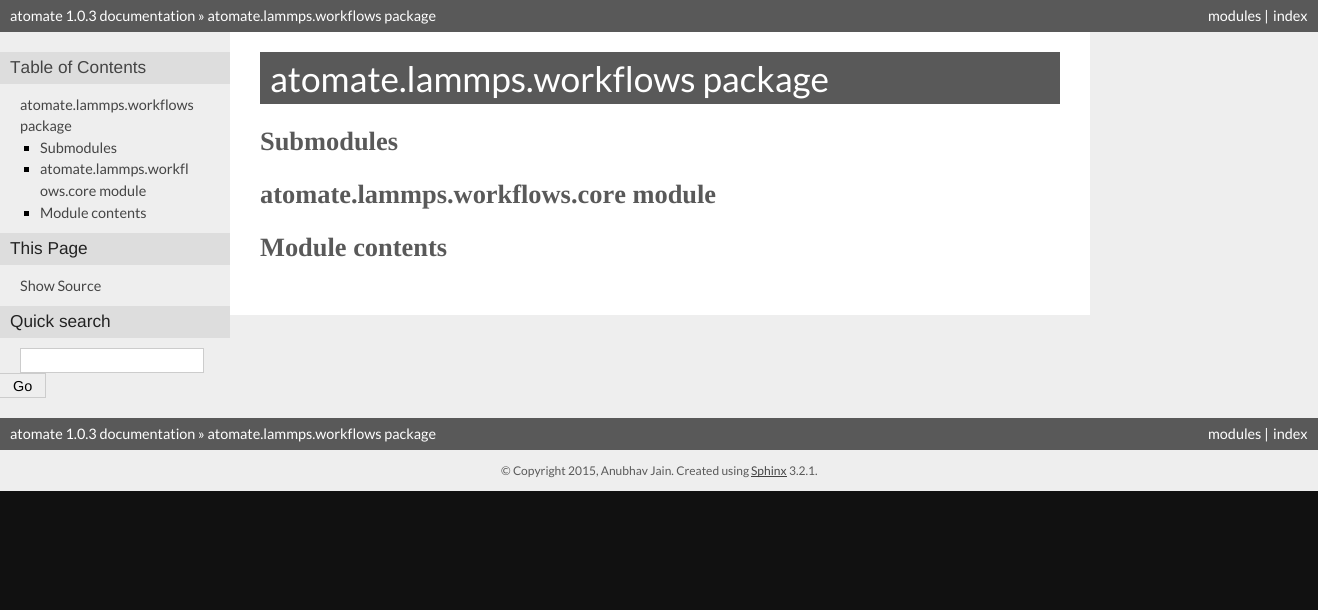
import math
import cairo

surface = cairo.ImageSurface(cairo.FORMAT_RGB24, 1318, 610)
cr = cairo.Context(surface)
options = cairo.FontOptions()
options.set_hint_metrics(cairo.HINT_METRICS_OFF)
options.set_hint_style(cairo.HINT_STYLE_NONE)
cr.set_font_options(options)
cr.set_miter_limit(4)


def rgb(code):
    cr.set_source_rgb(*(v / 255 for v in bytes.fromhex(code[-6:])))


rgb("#111111")
cr.paint()
for x, y, w, h, color in [
    (0, 0, 1318, 32, "#595959"),
    (0, 32, 1318, 386, "#eeeeee"),
    (0, 52, 230, 32, "#dddddd"),
    (24, 146, 5, 5, "#000000"),
    (24, 167, 5, 5, "#000000"),
    (24, 211, 5, 5, "#000000"),
    (0, 233, 230, 32, "#dddddd"),
    (0, 306, 230, 32, "#dddddd"),
]:
    rgb(color)
    cr.rectangle(x, y, w, h)
    cr.fill()
rgb("#ffffff")
cr.rectangle(20.5, 348.5, 183, 24)
cr.fill_preserve()
rgb("#cccccc")
cr.set_line_width(1)
cr.stroke()
for x, y, w, h, color in [
    (0, 373, 46, 1, "#cccccc"),
    (45, 373, 1, 25, "#cccccc"),
    (0, 397, 46, 1, "#cccccc"),
    (230, 32, 860, 283, "#ffffff"),
    (260, 52, 800, 52, "#595959"),
    (0, 418, 1318, 32, "#595959"),
    (0, 450, 1318, 41, "#eeeeee"),
    (751, 476, 36, 1, "#444444"),
]:
    rgb(color)
    cr.rectangle(x, y, w, h)
    cr.fill()
cr.select_font_face("Lato")
cr.set_font_size(14.4)
rgb("#ffffff")
for x, y, s in [
    (10, 21, "atomate 1.0.3 documentation » atomate.lammps.workflows package"),
    (1208, 21, "modules |"),
    (1273, 21, "index"),
]:
    cr.move_to(x, y)
    cr.show_text(s)
cr.select_font_face("Liberation Sans")
cr.set_font_size(17.25)
rgb("#444444")
cr.move_to(10, 73)
cr.show_text("Table of Contents")
cr.select_font_face("Lato")
cr.set_font_size(14.4)
for x, y, s in [
    (20, 110, "atomate.lammps.workflows"),
    (20, 131, "package"),
    (40, 153, "Submodules"),
    (40, 174, "atomate.lammps.workfl"),
    (40, 196, "ows.core module"),
    (40, 218, "Module contents"),
]:
    cr.move_to(x, y)
    cr.show_text(s)
cr.select_font_face("Liberation Sans")
cr.set_font_size(17.25)
rgb("#222222")
cr.move_to(10, 254)
cr.show_text("This Page")
cr.select_font_face("Lato")
cr.set_font_size(14.4)
rgb("#444444")
cr.move_to(20, 291)
cr.show_text("Show Source")
cr.select_font_face("Liberation Sans")
cr.set_font_size(17.25)
rgb("#222222")
cr.move_to(10, 327)
cr.show_text("Quick search")
cr.set_font_size(14.4)
rgb("#000000")
cr.move_to(13, 391)
cr.show_text("Go")
cr.select_font_face("Lato")
cr.set_font_size(35.25)
rgb("#ffffff")
cr.move_to(270, 92)
cr.show_text("atomate.lammps.workflows package")
cr.select_font_face("Liberation Serif", cairo.FONT_SLANT_NORMAL, cairo.FONT_WEIGHT_BOLD)
cr.set_font_size(26.4)
rgb("#595959")
for x, y, s in [
    (260, 150, "Submodules"),
    (260, 203, "atomate.lammps.workflows.core module"),
    (260, 256, "Module contents"),
]:
    cr.move_to(x, y)
    cr.show_text(s)
cr.select_font_face("Lato")
cr.set_font_size(14.4)
rgb("#ffffff")
for x, y, s in [
    (10, 439, "atomate 1.0.3 documentation » atomate.lammps.workflows package"),
    (1208, 439, "modules |"),
    (1273, 439, "index"),
]:
    cr.move_to(x, y)
    cr.show_text(s)
cr.set_font_size(12)
rgb("#595959")
cr.move_to(501, 475)
cr.show_text("© Copyright 2015, Anubhav Jain. Created using")
rgb("#444444")
cr.move_to(751, 475)
cr.show_text("Sphinx")
rgb("#595959")
cr.move_to(789, 475)
cr.show_text("3.2.1.")
surface.write_to_png("page.png")
